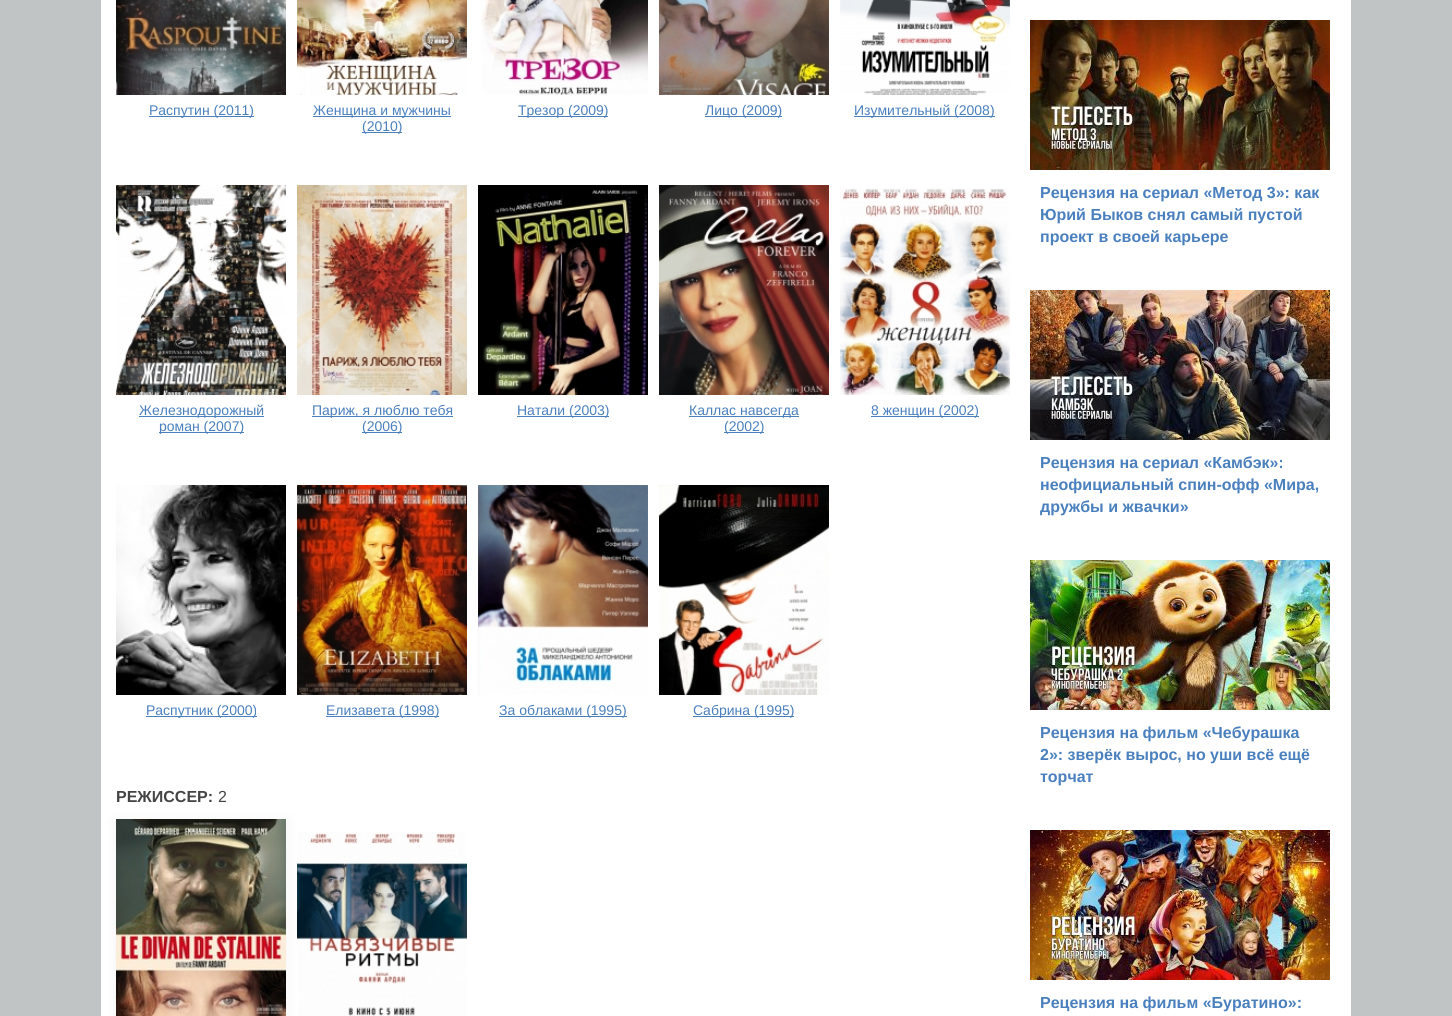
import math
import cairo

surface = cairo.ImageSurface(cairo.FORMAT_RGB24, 1452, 1016)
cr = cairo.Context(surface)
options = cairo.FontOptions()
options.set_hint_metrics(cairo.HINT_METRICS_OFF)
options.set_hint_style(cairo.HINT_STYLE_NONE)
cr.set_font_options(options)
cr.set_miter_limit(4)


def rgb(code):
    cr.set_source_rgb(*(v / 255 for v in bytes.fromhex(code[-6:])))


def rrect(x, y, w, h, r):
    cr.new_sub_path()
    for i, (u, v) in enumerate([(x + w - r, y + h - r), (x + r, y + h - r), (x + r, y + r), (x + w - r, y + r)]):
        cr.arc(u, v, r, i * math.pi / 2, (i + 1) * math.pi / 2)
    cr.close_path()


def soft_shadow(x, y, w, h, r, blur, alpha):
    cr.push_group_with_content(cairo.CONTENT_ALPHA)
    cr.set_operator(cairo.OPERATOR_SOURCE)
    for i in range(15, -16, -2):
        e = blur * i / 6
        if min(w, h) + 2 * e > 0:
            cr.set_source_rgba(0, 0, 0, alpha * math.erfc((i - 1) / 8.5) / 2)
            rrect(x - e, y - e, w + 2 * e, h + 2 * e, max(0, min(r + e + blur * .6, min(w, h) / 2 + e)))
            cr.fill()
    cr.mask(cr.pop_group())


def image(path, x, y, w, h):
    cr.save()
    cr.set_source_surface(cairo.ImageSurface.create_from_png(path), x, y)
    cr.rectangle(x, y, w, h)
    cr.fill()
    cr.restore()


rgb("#c1c4c5")
cr.paint()
rgb("#ffffff")
cr.rectangle(101, 0, 1250, 1016)
cr.fill()
image("img/1.png", 116, 0, 170, 95)
rgb("#4a80be")
cr.rectangle(149, 116, 105, 1)
cr.fill()
image("img/2.png", 297, 0, 170, 95)
cr.rectangle(313, 116, 138, 1)
cr.fill()
cr.rectangle(362, 132, 40, 1)
cr.fill()
image("img/3.png", 481, 0, 167, 95)
cr.rectangle(518, 116, 90, 1)
cr.fill()
image("img/4.png", 659, 0, 170, 95)
cr.rectangle(705, 116, 77, 1)
cr.fill()
image("img/5.png", 840, 0, 170, 95)
cr.rectangle(854, 116, 141, 1)
cr.fill()
image("img/6.png", 116, 185, 170, 210)
cr.rectangle(139, 416, 125, 1)
cr.fill()
cr.rectangle(159, 432, 85, 1)
cr.fill()
image("img/7.png", 297, 185, 170, 210)
cr.rectangle(312, 416, 141, 1)
cr.fill()
cr.rectangle(362, 432, 40, 1)
cr.fill()
image("img/8.png", 478, 185, 170, 210)
cr.rectangle(517, 416, 92, 1)
cr.fill()
image("img/9.png", 659, 185, 170, 210)
cr.rectangle(689, 416, 110, 1)
cr.fill()
cr.rectangle(724, 432, 40, 1)
cr.fill()
image("img/10.png", 840, 188, 170, 207)
cr.rectangle(871, 416, 108, 1)
cr.fill()
image("img/11.png", 116, 485, 170, 210)
cr.rectangle(146, 716, 111, 1)
cr.fill()
image("img/12.png", 297, 485, 170, 210)
cr.rectangle(326, 716, 113, 1)
cr.fill()
image("img/13.png", 478, 485, 170, 210)
cr.rectangle(499, 716, 128, 1)
cr.fill()
image("img/14.png", 659, 485, 170, 210)
cr.rectangle(693, 716, 101, 1)
cr.fill()
rgb("#000000")
soft_shadow(116, 821, 170, 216, 0, 7, 0.05)
image("img/15.png", 116, 819, 170, 197)
image("img/16.png", 297, 832, 170, 184)
image("img/17.png", 1030, 20, 300, 150)
image("img/18.png", 1030, 290, 300, 150)
image("img/19.png", 1030, 560, 300, 150)
image("img/20.png", 1030, 830, 300, 150)
cr.select_font_face("Liberation Sans")
cr.set_font_size(14)
rgb("#4a80be")
for x, y, s in [
    (149, 115, "Распутин (2011)"),
    (313, 115, "Женщина и мужчины"),
    (362, 131, "(2010)"),
    (518, 115, "Трезор (2009)"),
    (705, 115, "Лицо (2009)"),
    (854, 115, "Изумительный (2008)"),
    (139, 415, "Железнодорожный"),
    (159, 431, "роман (2007)"),
    (312, 415, "Париж, я люблю тебя"),
    (362, 431, "(2006)"),
    (517, 415, "Натали (2003)"),
    (689, 415, "Каллас навсегда"),
    (724, 431, "(2002)"),
    (871, 415, "8 женщин (2002)"),
    (146, 715, "Распутник (2000)"),
    (326, 715, "Елизавета (1998)"),
    (499, 715, "За облаками (1995)"),
    (693, 715, "Сабрина (1995)"),
]:
    cr.move_to(x, y)
    cr.show_text(s)
cr.select_font_face("Liberation Sans", cairo.FONT_SLANT_NORMAL, cairo.FONT_WEIGHT_BOLD)
cr.set_font_size(16)
rgb("#444444")
cr.move_to(116, 802)
cr.show_text("РЕЖИССЕР:")
cr.select_font_face("Liberation Sans")
cr.move_to(218, 802)
cr.show_text("2")
cr.select_font_face("Liberation Sans", cairo.FONT_SLANT_NORMAL, cairo.FONT_WEIGHT_BOLD)
rgb("#4a80be")
for x, y, s in [
    (1040, 198, "Рецензия на сериал «Метод 3»: как"),
    (1040, 220, "Юрий Быков снял самый пустой"),
    (1040, 242, "проект в своей карьере"),
    (1040, 468, "Рецензия на сериал «Камбэк»:"),
    (1040, 490, "неофициальный спин-офф «Мира,"),
    (1040, 512, "дружбы и жвачки»"),
    (1040, 738, "Рецензия на фильм «Чебурашка"),
    (1040, 760, "2»: зверёк вырос, но уши всё ещё"),
    (1040, 782, "торчат"),
    (1040, 1008, "Рецензия на фильм «Буратино»:"),
]:
    cr.move_to(x, y)
    cr.show_text(s)
surface.write_to_png("page.png")
